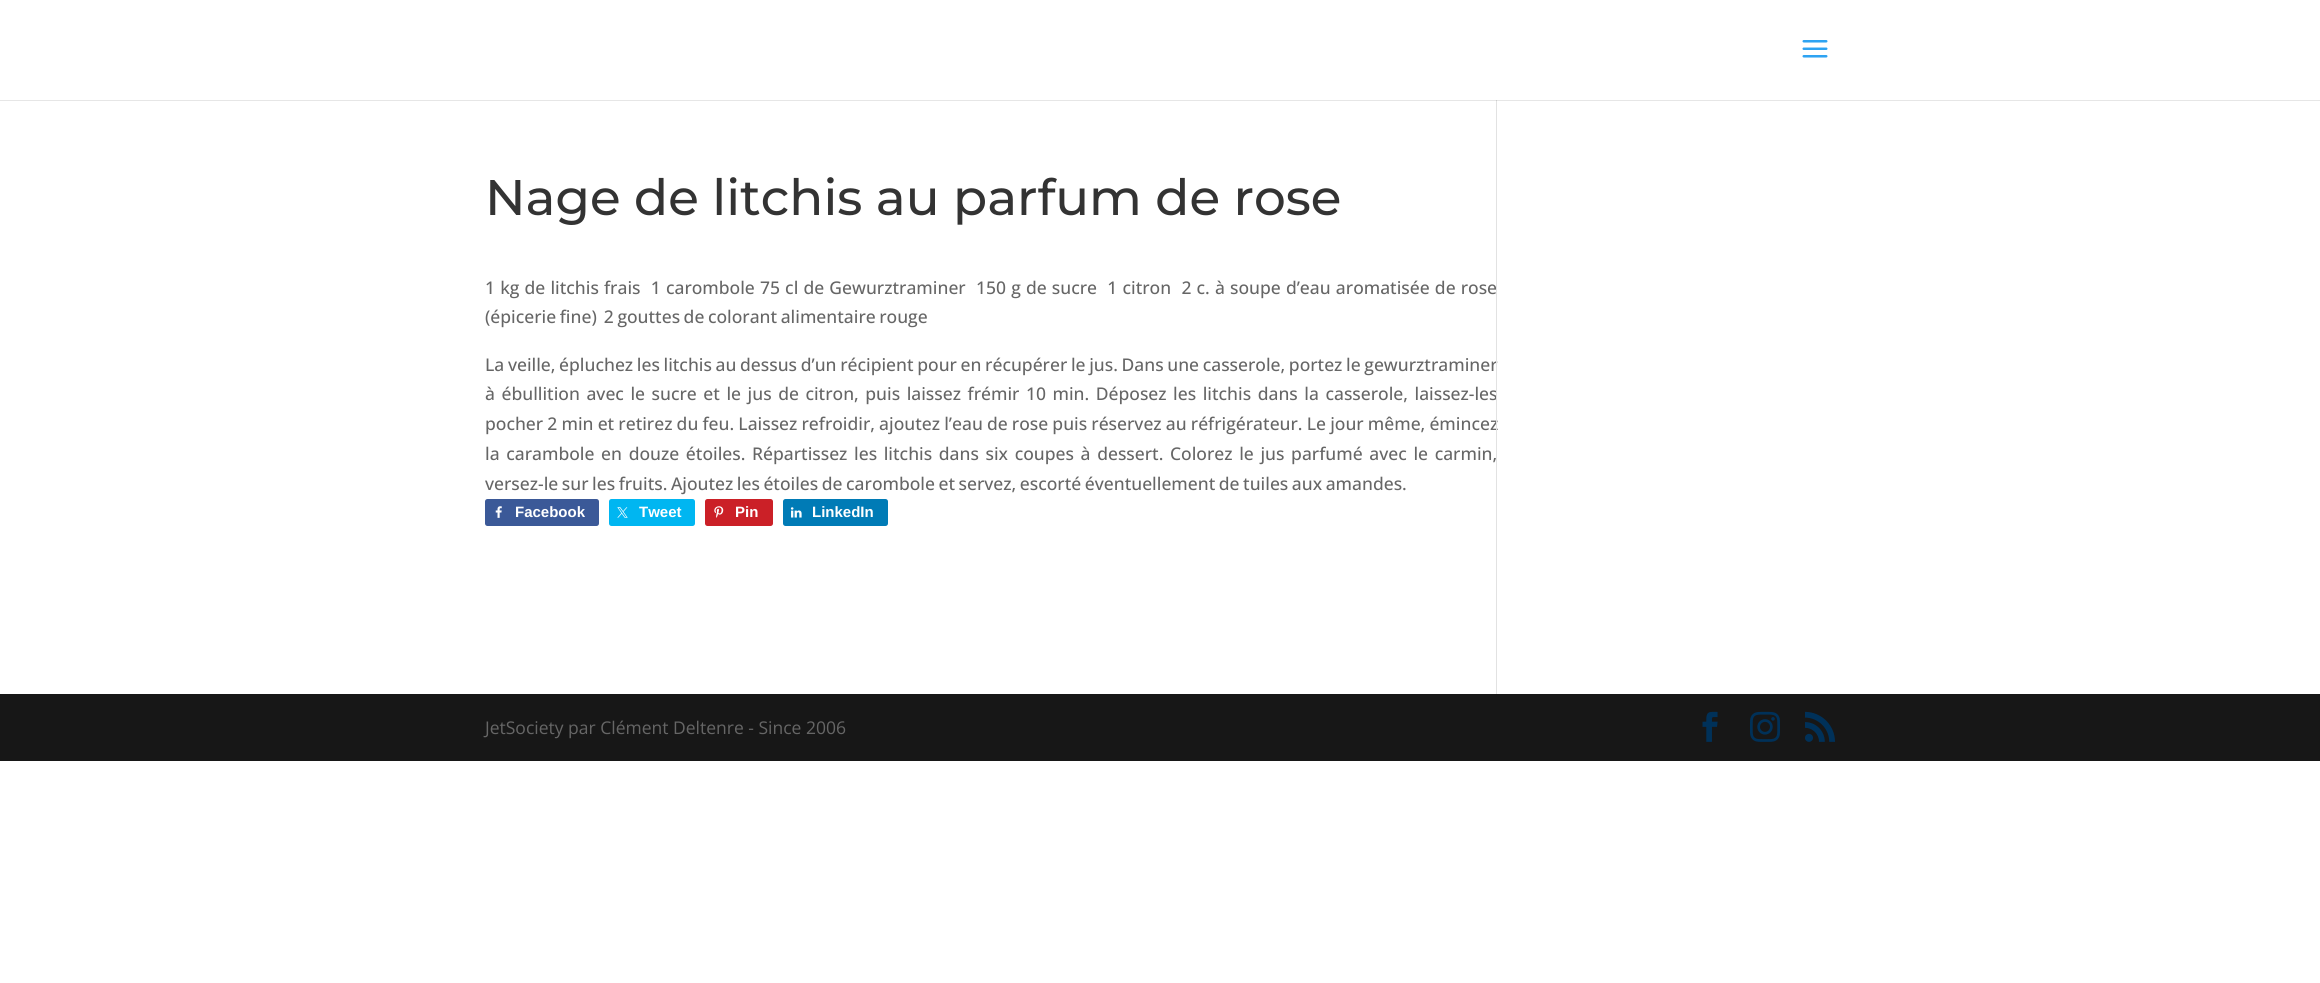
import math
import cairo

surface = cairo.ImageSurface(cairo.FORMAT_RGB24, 2320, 983)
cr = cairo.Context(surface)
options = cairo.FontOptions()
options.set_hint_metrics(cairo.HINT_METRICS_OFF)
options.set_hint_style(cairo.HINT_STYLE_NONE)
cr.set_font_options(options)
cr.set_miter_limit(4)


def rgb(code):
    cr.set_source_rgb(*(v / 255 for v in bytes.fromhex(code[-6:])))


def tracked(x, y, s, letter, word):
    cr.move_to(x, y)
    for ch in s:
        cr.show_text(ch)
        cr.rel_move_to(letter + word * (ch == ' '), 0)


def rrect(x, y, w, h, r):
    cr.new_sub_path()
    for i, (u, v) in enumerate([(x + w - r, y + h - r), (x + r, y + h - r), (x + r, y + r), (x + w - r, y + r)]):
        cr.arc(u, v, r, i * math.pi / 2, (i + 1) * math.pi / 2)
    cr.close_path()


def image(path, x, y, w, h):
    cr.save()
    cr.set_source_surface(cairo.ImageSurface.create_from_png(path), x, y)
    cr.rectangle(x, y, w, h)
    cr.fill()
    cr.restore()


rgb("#ffffff")
cr.paint()
rgb("#e6e6e6")
cr.rectangle(0, 100, 2320, 1)
cr.fill()
image("img/1.png", 1802, 40, 26, 18)
rgb("#3b5998")
rrect(485, 499, 114, 27, 2.5)
cr.fill()
image("img/2.png", 495, 506, 7, 12)
rgb("#00b6f1")
rrect(609, 499, 86, 27, 2.5)
cr.fill()
image("img/3.png", 617, 507, 11, 11)
rgb("#cb2027")
rrect(705, 499, 68, 27, 2.5)
cr.fill()
image("img/4.png", 714, 506, 10, 12)
rgb("#007bb6")
rrect(783, 499, 105, 27, 2.5)
cr.fill()
image("img/5.png", 790, 507, 12, 11)
rgb("#171717")
cr.rectangle(0, 694, 2320, 67)
cr.fill()
image("img/6.png", 1702, 711, 16, 31)
image("img/7.png", 1750, 711, 30, 31)
image("img/8.png", 1805, 711, 30, 31)
cr.select_font_face("Montserrat Medium")
cr.set_font_size(50)
rgb("#333333")
cr.move_to(485, 215)
cr.show_text("Nage de litchis au parfum de rose")
cr.select_font_face("Open Sans Medium")
cr.set_font_size(17.5)
rgb("#666666")
tracked(485, 294, "1 kg de litchis frais  1 carombole 75 cl de Gewurztraminer  150 g de sucre  1 citron  2 c. à soupe d’eau aromatisée de rose", 0, 0.6)
tracked(485, 323, "(épicerie fine)  2 gouttes de colorant alimentaire rouge", 0, -1)
tracked(485, 371, "La veille, épluchez les litchis au dessus d’un récipient pour en récupérer le jus. Dans une casserole, portez le gewurztraminer", 0, -0.9)
tracked(485, 400, "à ébullition avec le sucre et le jus de citron, puis laissez frémir 10 min. Déposez les litchis dans la casserole, laissez-les", 0, 2)
tracked(485, 430, "pocher 2 min et retirez du feu. Laissez refroidir, ajoutez l’eau de rose puis réservez au réfrigérateur. Le jour même, émincez", 0, -0.4)
tracked(485, 460, "la carambole en douze étoiles. Répartissez les litchis dans six coupes à dessert. Colorez le jus parfumé avec le carmin,", 0, 2.1)
rgb("#e2e2e2")
cr.rectangle(1496, 100, 1, 594)
cr.fill()
rgb("#cbcbcb")
cr.rectangle(1496, 100, 1, 1)
cr.fill()
rgb("#666666")
tracked(485, 490, "versez-le sur les fruits. Ajoutez les étoiles de carombole et servez, escorté éventuellement de tuiles aux amandes.", 0, -1)
cr.select_font_face("Liberation Sans", cairo.FONT_SLANT_NORMAL, cairo.FONT_WEIGHT_BOLD)
cr.set_font_size(15)
rgb("#ffffff")
for x, y, s in [
    (515, 517, "Facebook"),
    (639, 517, "Tweet"),
    (735, 517, "Pin"),
    (812, 517, "LinkedIn"),
]:
    cr.move_to(x, y)
    cr.show_text(s)
cr.select_font_face("Open Sans")
cr.set_font_size(17.5)
rgb("#666666")
cr.move_to(485, 734)
cr.show_text("JetSociety par Clément Deltenre - Since 2006")
surface.write_to_png("page.png")
